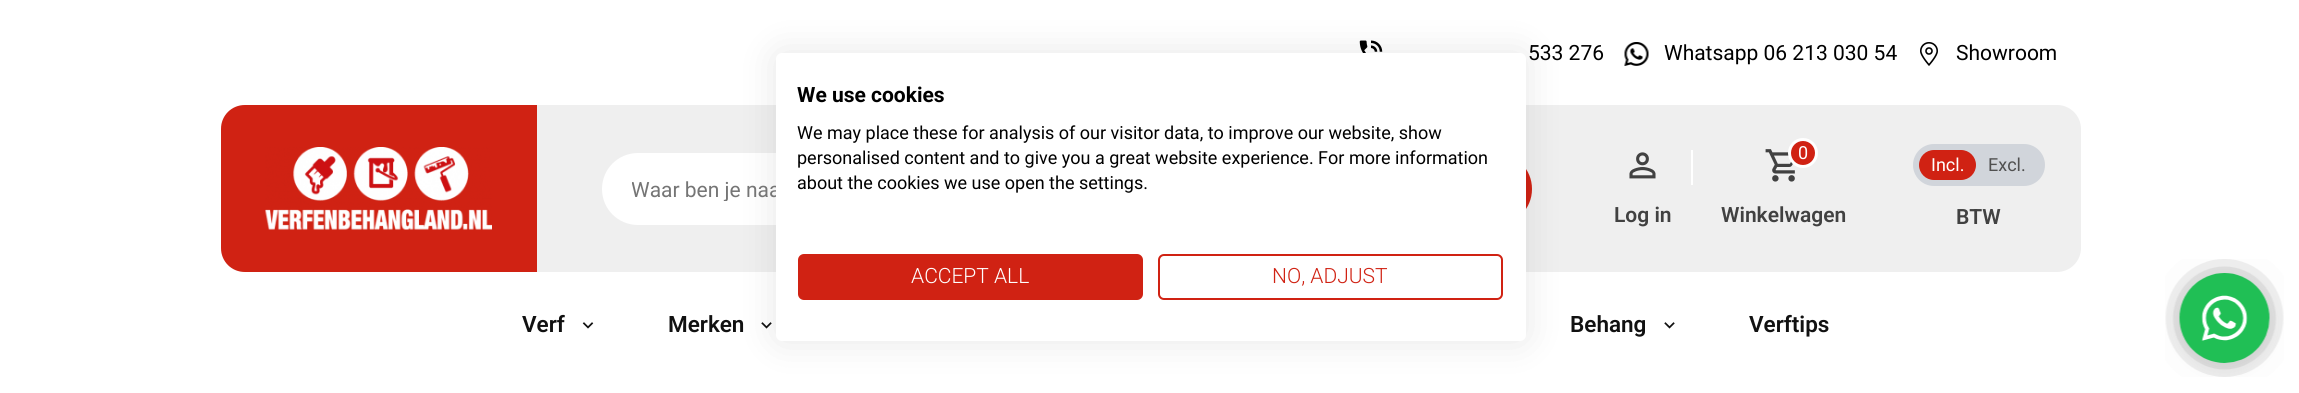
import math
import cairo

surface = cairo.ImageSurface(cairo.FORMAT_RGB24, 2299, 393)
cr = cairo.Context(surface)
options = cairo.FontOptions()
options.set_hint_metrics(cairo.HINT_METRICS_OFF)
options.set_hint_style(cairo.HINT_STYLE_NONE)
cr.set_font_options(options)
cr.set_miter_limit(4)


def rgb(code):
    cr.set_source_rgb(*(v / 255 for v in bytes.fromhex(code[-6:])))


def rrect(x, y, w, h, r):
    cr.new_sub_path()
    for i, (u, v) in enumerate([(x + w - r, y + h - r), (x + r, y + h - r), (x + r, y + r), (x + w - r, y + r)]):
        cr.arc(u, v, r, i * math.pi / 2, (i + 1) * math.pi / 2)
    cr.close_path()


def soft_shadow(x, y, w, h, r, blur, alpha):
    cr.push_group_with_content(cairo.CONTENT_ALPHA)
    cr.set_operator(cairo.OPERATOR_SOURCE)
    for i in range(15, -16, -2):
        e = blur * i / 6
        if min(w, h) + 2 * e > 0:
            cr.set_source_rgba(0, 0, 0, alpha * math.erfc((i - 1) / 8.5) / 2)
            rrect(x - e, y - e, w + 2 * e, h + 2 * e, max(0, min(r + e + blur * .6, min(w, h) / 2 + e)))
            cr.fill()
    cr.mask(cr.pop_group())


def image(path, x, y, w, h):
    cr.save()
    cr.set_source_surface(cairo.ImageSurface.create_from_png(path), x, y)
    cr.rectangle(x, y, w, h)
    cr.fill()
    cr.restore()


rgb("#ffffff")
cr.paint()
image("img/1.png", 1359, 40, 24, 13)
image("img/2.png", 1624, 42, 25, 24)
image("img/3.png", 1920, 42, 18, 24)
rgb("#efefef")
rrect(221, 105, 1860, 167, 24)
cr.fill()
rgb("#d02213")
cr.new_path()
cr.move_to(245, 105)
cr.line_to(537, 105)
cr.line_to(537, 272)
cr.line_to(245, 272)
cr.curve_to(231.5, 272, 221, 261.5, 221, 248)
cr.line_to(221, 129)
cr.curve_to(221, 115.5, 231.5, 105, 245, 105)
cr.close_path()
cr.fill()
image("img/4.png", 265, 147, 227, 83)
rgb("#ffffff")
cr.new_path()
cr.move_to(638, 153)
cr.line_to(1176, 153)
cr.line_to(1176, 225)
cr.line_to(638, 225)
cr.curve_to(618, 225, 602, 209, 602, 189)
cr.curve_to(602, 169, 618, 153, 638, 153)
cr.close_path()
cr.fill()
rgb("#d02213")
cr.new_path()
cr.move_to(1349, 153)
cr.line_to(1496, 153)
cr.curve_to(1516, 153, 1532, 169, 1532, 189)
cr.curve_to(1532, 209, 1516, 225, 1496, 225)
cr.line_to(1349, 225)
cr.close_path()
cr.fill()
image("img/5.png", 1765, 149, 30, 33)
cr.arc(1803, 153, 13.5, 0, 2 * math.pi)
cr.fill_preserve()
rgb("#ffffff")
cr.set_line_width(3)
cr.stroke()
rgb("#d1d5db")
rrect(1913, 144, 132, 42, 21)
cr.fill()
rgb("#d02213")
rrect(1919, 150, 57, 30, 15)
cr.fill()
rgb("#ffffff")
cr.rectangle(1691, 150, 2, 35)
cr.fill()
image("img/6.png", 1629, 152, 27, 27)
image("img/7.png", 582, 322, 12, 7)
image("img/8.png", 761, 322, 11, 7)
image("img/8.png", 1664, 322, 11, 7)
rgb("#000000")
soft_shadow(776, 53, 750, 288, 6, 18, 0.1)
image("img/9.png", 2165, 259, 119, 118)
cr.select_font_face("Roboto")
cr.set_font_size(21)
rgb("#000000")
for x, y, s in [
    (1528, 60, "533 276"),
    (1664, 60, "Whatsapp 06 213 030 54"),
    (1956, 60, "Showroom"),
]:
    cr.move_to(x, y)
    cr.show_text(s)
cr.save()
cr.rectangle(632, 177, 514, 24)
cr.clip()
rgb("#757575")
cr.move_to(631, 197)
cr.show_text("Waar ben je naa")
cr.restore()
cr.set_font_size(18)
rgb("#ffffff")
cr.move_to(1798, 159)
cr.show_text("0")
cr.select_font_face("Roboto SemiBold")
cr.set_font_size(21)
rgb("#414141")
cr.move_to(1721, 222)
cr.show_text("Winkelwagen")
cr.select_font_face("Roboto")
cr.set_font_size(18)
rgb("#ffffff")
cr.move_to(1931, 171)
cr.show_text("Incl.")
rgb("#505050")
cr.move_to(1988, 171)
cr.show_text("Excl.")
cr.select_font_face("Roboto SemiBold")
cr.set_font_size(21)
rgb("#414141")
cr.move_to(1956, 224)
cr.show_text("BTW")
cr.move_to(1614, 222)
cr.show_text("Log in")
cr.set_font_size(22.5)
rgb("#111111")
for x, y, s in [
    (522, 332, "Verf"),
    (668, 332, "Merken"),
    (1570, 332, "Behang"),
    (1749, 332, "Verftips"),
]:
    cr.move_to(x, y)
    cr.show_text(s)
rgb("#ffffff")
rrect(776, 53, 750, 288, 6)
cr.fill()
cr.select_font_face("Roboto", cairo.FONT_SLANT_NORMAL, cairo.FONT_WEIGHT_BOLD)
cr.set_font_size(21)
rgb("#000000")
cr.move_to(797, 102)
cr.show_text("We use cookies")
cr.select_font_face("Roboto")
cr.set_font_size(18)
for x, y, s in [
    (797, 139, "We may place these for analysis of our visitor data, to improve our website, show"),
    (797, 164, "personalised content and to give you a great website experience. For more information"),
    (797, 189, "about the cookies we use open the settings."),
]:
    cr.move_to(x, y)
    cr.show_text(s)
rgb("#d02213")
rrect(799, 255, 343, 44, 5)
cr.fill_preserve()
cr.set_line_width(2)
cr.stroke()
cr.select_font_face("Roboto Light")
cr.set_font_size(21)
rgb("#ffffff")
cr.move_to(911, 283)
cr.show_text("ACCEPT ALL")
rrect(1159, 255, 343, 44, 5)
rgb("#d02213")
cr.stroke()
cr.move_to(1272, 283)
cr.show_text("NO, ADJUST")
surface.write_to_png("page.png")
